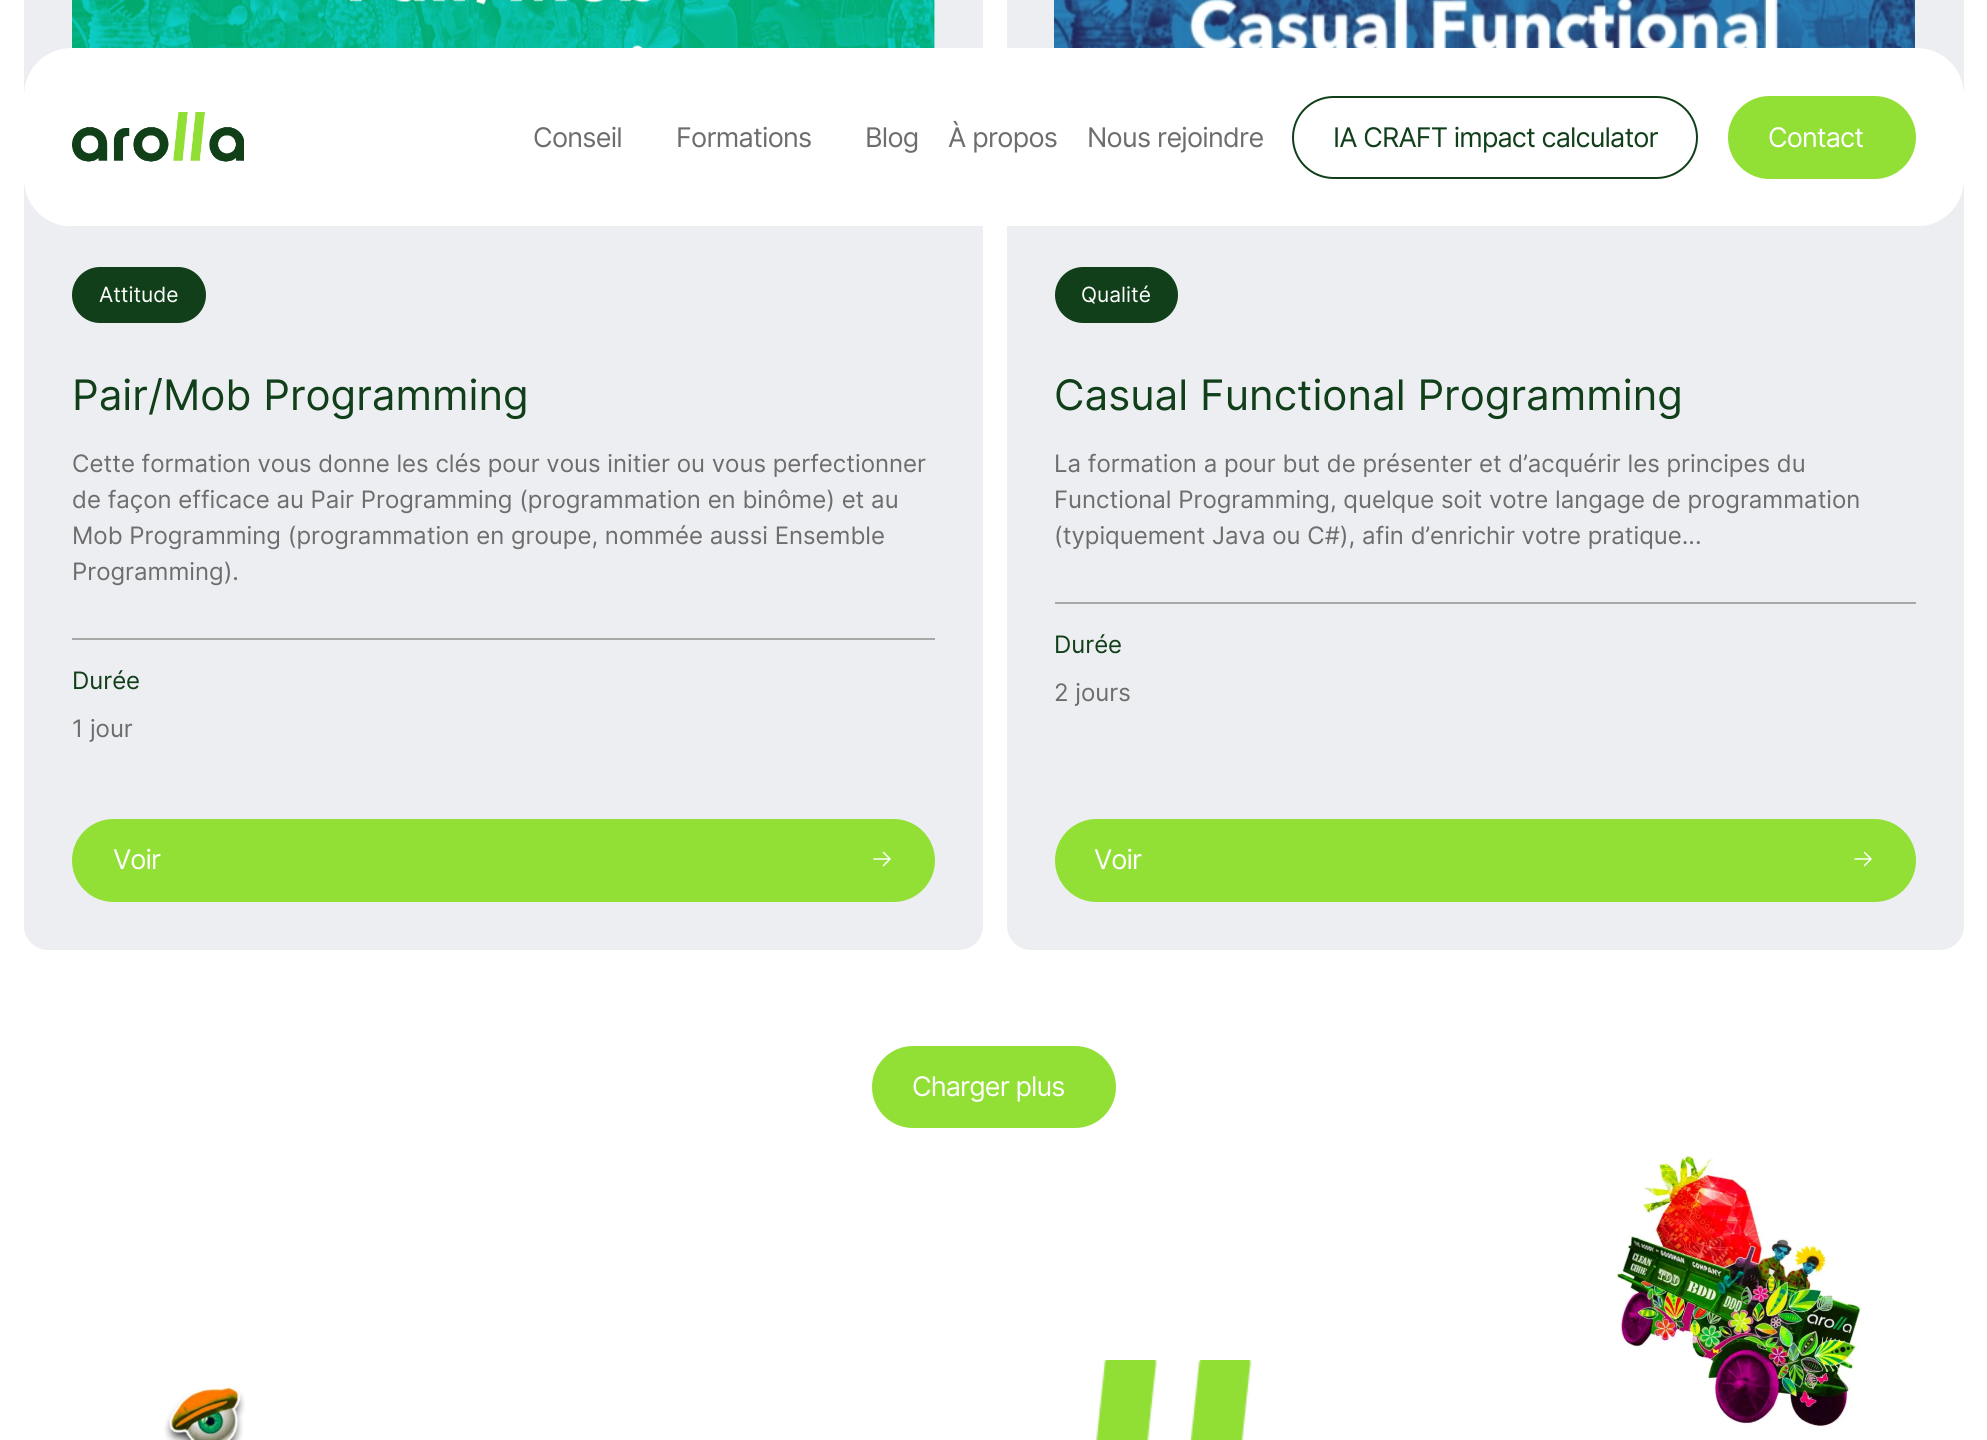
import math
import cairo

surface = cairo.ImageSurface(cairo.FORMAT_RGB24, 1987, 1440)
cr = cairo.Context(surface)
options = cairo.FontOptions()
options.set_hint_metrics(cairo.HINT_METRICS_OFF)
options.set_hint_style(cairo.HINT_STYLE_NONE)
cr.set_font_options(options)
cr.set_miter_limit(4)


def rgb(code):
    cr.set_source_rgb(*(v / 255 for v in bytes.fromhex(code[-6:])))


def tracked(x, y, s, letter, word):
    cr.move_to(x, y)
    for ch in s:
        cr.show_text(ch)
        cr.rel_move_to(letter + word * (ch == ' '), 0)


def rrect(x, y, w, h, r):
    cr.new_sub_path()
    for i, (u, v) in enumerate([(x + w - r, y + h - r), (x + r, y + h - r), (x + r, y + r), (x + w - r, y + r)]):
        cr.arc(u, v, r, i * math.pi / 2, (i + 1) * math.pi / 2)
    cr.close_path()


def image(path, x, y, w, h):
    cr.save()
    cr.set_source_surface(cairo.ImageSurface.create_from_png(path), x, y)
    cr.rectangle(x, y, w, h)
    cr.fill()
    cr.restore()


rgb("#ffffff")
cr.paint()
rgb("#edeef2")
rrect(24, -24, 959, 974, 24)
cr.fill()
rrect(1007, -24, 957, 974, 24)
cr.fill()
rgb("#ffffff")
cr.new_path()
cr.move_to(72, 48)
cr.line_to(1916, 48)
cr.curve_to(1943, 48, 1964, 69, 1964, 96)
cr.line_to(1964, 179)
cr.curve_to(1964, 203, 1946, 223, 1923, 226)
cr.line_to(65, 226)
cr.curve_to(42, 223, 24, 203, 24, 179)
cr.line_to(24, 96)
cr.curve_to(24, 69, 45, 48, 72, 48)
cr.close_path()
cr.fill()
image("img/1.png", 72, 112, 172, 50)
rrect(1293, 97, 404, 81, 40.5)
rgb("#103f19")
cr.stroke()
rgb("#92df36")
rrect(1728, 96, 188, 83, 41.5)
cr.fill()
image("img/2.png", 72, 0, 863, 48)
rgb("#103f19")
rrect(72, 267, 134, 56, 28)
cr.fill()
rgb("#a8a8a8")
cr.rectangle(72, 638, 863, 2)
cr.fill()
rgb("#92df36")
rrect(72, 819, 863, 83, 41.5)
cr.fill()
cr.new_path()
cr.move_to(874, 859)
cr.line_to(890, 859)
cr.move_to(883.5, 852.5)
cr.line_to(890, 859)
cr.line_to(883.5, 865.5)
rgb("#ffffff")
cr.set_line_width(1.5)
cr.set_line_cap(cairo.LINE_CAP_ROUND)
cr.set_line_join(cairo.LINE_JOIN_ROUND)
cr.stroke()
image("img/3.png", 1054, 0, 861, 48)
rgb("#103f19")
rrect(1055, 267, 123, 56, 28)
cr.fill()
rgb("#a8a8a8")
cr.rectangle(1055, 602, 861, 2)
cr.fill()
rgb("#92df36")
rrect(1055, 819, 861, 83, 41.5)
cr.fill()
cr.new_path()
cr.move_to(1855, 859)
cr.line_to(1871, 859)
cr.move_to(1864.5, 852.5)
cr.line_to(1871, 859)
cr.line_to(1864.5, 865.5)
rgb("#ffffff")
cr.stroke()
rgb("#92df36")
rrect(872, 1046, 244, 82, 41)
cr.fill()
image("img/4.png", 164, 1387, 81, 53)
image("img/5.png", 1096, 1360, 156, 80)
image("img/6.png", 1616, 1155, 245, 272)
cr.select_font_face("Inter")
cr.set_font_size(27)
rgb("#6d6d6d")
for x, y, s in [
    (533, 147, "Conseil"),
    (676, 147, "Formations"),
    (865, 147, "Blog"),
    (948, 147, "À propos"),
    (1087, 147, "Nous rejoindre"),
]:
    tracked(x, y, s, -0.75, 0)
rgb("#103f19")
tracked(1333, 147, "IA CRAFT impact calculator", -0.9, 0)
rgb("#ffffff")
tracked(1768, 147, "Contact", -0.9, 0)
cr.set_font_size(21)
cr.move_to(99, 302)
cr.show_text("Attitude")
cr.set_font_size(42)
rgb("#103f19")
cr.move_to(72, 410)
cr.show_text("Pair/Mob Programming")
cr.set_font_size(24)
rgb("#6d6d6d")
for x, y, s in [
    (72, 472, "Cette formation vous donne les clés pour vous initier ou vous perfectionner"),
    (72, 508, "de façon efficace au Pair Programming (programmation en binôme) et au"),
    (72, 544, "Mob Programming (programmation en groupe, nommée aussi Ensemble"),
    (72, 580, "Programming)."),
]:
    cr.move_to(x, y)
    cr.show_text(s)
rgb("#103f19")
cr.move_to(72, 689)
cr.show_text("Durée")
rgb("#6d6d6d")
cr.move_to(72, 737)
cr.show_text("1 jour")
cr.set_font_size(27)
rgb("#ffffff")
tracked(113, 869, "Voir", -0.9, 0)
cr.set_font_size(21)
cr.move_to(1081, 302)
cr.show_text("Qualité")
cr.set_font_size(42)
rgb("#103f19")
cr.move_to(1054, 410)
cr.show_text("Casual Functional Programming")
cr.set_font_size(24)
rgb("#6d6d6d")
for x, y, s in [
    (1054, 472, "La formation a pour but de présenter et d’acquérir les principes du"),
    (1054, 508, "Functional Programming, quelque soit votre langage de programmation"),
    (1054, 544, "(typiquement Java ou C#), afin d’enrichir votre pratique..."),
]:
    cr.move_to(x, y)
    cr.show_text(s)
rgb("#103f19")
cr.move_to(1054, 653)
cr.show_text("Durée")
rgb("#6d6d6d")
cr.move_to(1054, 701)
cr.show_text("2 jours")
cr.set_font_size(27)
rgb("#ffffff")
tracked(1094, 869, "Voir", -0.9, 0)
tracked(912, 1096, "Charger plus", -0.9, 0)
surface.write_to_png("page.png")
